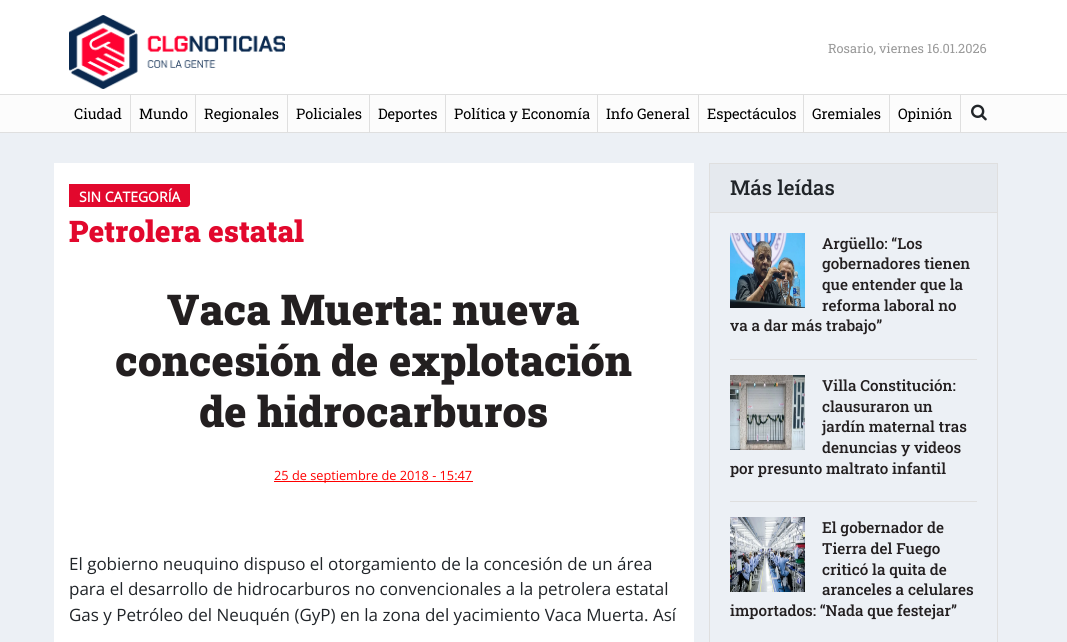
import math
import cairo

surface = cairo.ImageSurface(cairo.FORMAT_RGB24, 1067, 642)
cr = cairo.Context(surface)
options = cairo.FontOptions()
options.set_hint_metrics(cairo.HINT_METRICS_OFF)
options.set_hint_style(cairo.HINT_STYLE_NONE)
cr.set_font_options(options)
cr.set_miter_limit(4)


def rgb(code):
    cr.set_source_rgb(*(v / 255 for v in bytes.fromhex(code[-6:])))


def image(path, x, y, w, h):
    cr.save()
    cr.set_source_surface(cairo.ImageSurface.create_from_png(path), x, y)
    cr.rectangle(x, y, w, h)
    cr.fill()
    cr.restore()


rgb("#ecf0f5")
cr.paint()
rgb("#ffffff")
cr.rectangle(0, 0, 1067, 94)
cr.fill()
image("img/1.png", 69, 15, 216, 74)
for x, y, w, h, color in [
    (0, 95, 1067, 37, "#fcfcfc"),
    (0, 94, 1067, 1, "#dfdfdf"),
    (0, 132, 1067, 1, "#dfdfdf"),
    (130, 95, 1, 37, "#dfdfdf"),
    (195, 95, 1, 37, "#dfdfdf"),
    (287, 95, 1, 37, "#dfdfdf"),
    (369, 95, 1, 37, "#dfdfdf"),
    (445, 95, 1, 37, "#dfdfdf"),
    (597, 95, 1, 37, "#dfdfdf"),
    (698, 95, 1, 37, "#dfdfdf"),
    (803, 95, 1, 37, "#dfdfdf"),
    (889, 95, 1, 37, "#dfdfdf"),
    (960, 95, 1, 37, "#dfdfdf"),
]:
    rgb(color)
    cr.rectangle(x, y, w, h)
    cr.fill()
image("img/2.png", 971, 104, 16, 17)
rgb("#ffffff")
cr.rectangle(54, 163, 640, 479)
cr.fill()
rgb("#e2082d")
cr.new_path()
cr.move_to(69, 184)
cr.line_to(190, 184)
cr.line_to(190, 204)
cr.curve_to(190, 205.5, 188.5, 207, 187, 207)
cr.line_to(69, 207)
cr.close_path()
cr.fill()
for x, y, w, h, color in [
    (274, 481, 199, 1, "#ff0000"),
    (710, 164, 287, 48, "#e5e9ee"),
    (709, 163, 289, 1, "#dfdfdf"),
    (997, 163, 1, 49, "#dfdfdf"),
    (709, 163, 1, 49, "#dfdfdf"),
]:
    rgb(color)
    cr.rectangle(x, y, w, h)
    cr.fill()
cr.rectangle(709.5, 212.5, 288, 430)
cr.set_line_width(1)
cr.stroke()
cr.rectangle(730, 359, 247, 1)
cr.fill()
image("img/3.png", 730, 233, 75, 75)
cr.rectangle(730, 501, 247, 1)
cr.fill()
image("img/4.png", 730, 375, 75, 75)
image("img/5.png", 730, 517, 75, 75)
cr.select_font_face("Roboto Slab")
cr.set_font_size(12.75)
rgb("#999999")
cr.move_to(828, 53)
cr.show_text("Rosario, viernes 16.01.2026")
cr.set_font_size(14.5)
rgb("#000000")
for x, y, s in [
    (74, 119, "Ciudad"),
    (139, 119, "Mundo"),
    (204, 119, "Regionales"),
    (296, 119, "Policiales"),
    (378, 119, "Deportes"),
    (454, 119, "Política y Economía"),
    (606, 119, "Info General"),
    (707, 119, "Espectáculos"),
    (812, 119, "Gremiales"),
    (898, 119, "Opinión"),
]:
    cr.move_to(x, y)
    cr.show_text(s)
cr.select_font_face("Open Sans", cairo.FONT_SLANT_NORMAL, cairo.FONT_WEIGHT_BOLD)
cr.set_font_size(14)
rgb("#ffffff")
cr.move_to(79, 202)
cr.show_text("SIN CATEGORÍA")
cr.select_font_face("Roboto Slab Black")
cr.set_font_size(29.75)
rgb("#e2082d")
cr.move_to(69, 242)
cr.show_text("Petrolera estatal")
cr.set_font_size(42.5)
rgb("#231f20")
for x, y, s in [
    (167, 325, "Vaca Muerta: nueva"),
    (115, 376, "concesión de explotación"),
    (199, 427, "de hidrocarburos"),
]:
    cr.move_to(x, y)
    cr.show_text(s)
cr.select_font_face("Open Sans")
cr.set_font_size(12.75)
rgb("#ff0000")
cr.move_to(274, 480)
cr.show_text("25 de septiembre de 2018 - 15:47")
cr.set_font_size(17)
rgb("#212529")
for x, y, s in [
    (69, 570, "El gobierno neuquino dispuso el otorgamiento de la concesión de un área"),
    (69, 595, "para el desarrollo de hidrocarburos no convencionales a la petrolera estatal"),
    (69, 621, "Gas y Petróleo del Neuquén (GyP) en la zona del yacimiento Vaca Muerta. Así"),
]:
    cr.move_to(x, y)
    cr.show_text(s)
cr.select_font_face("Roboto Slab Medium")
cr.set_font_size(20.5)
cr.move_to(730, 195)
cr.show_text("Más leídas")
cr.set_font_size(15.25)
rgb("#231f20")
for x, y, s in [
    (822, 249, "Argüello: “Los"),
    (822, 269, "gobernadores tienen"),
    (822, 290, "que entender que la"),
    (822, 311, "reforma laboral no"),
    (730, 331, "va a dar más trabajo”"),
    (822, 391, "Villa Constitución:"),
    (822, 412, "clausuraron un"),
    (822, 432, "jardín maternal tras"),
    (822, 453, "denuncias y videos"),
    (730, 474, "por presunto maltrato infantil"),
    (822, 533, "El gobernador de"),
    (822, 554, "Tierra del Fuego"),
    (822, 575, "criticó la quita de"),
    (822, 595, "aranceles a celulares"),
    (730, 616, "importados: “Nada que festejar”"),
]:
    cr.move_to(x, y)
    cr.show_text(s)
surface.write_to_png("page.png")
